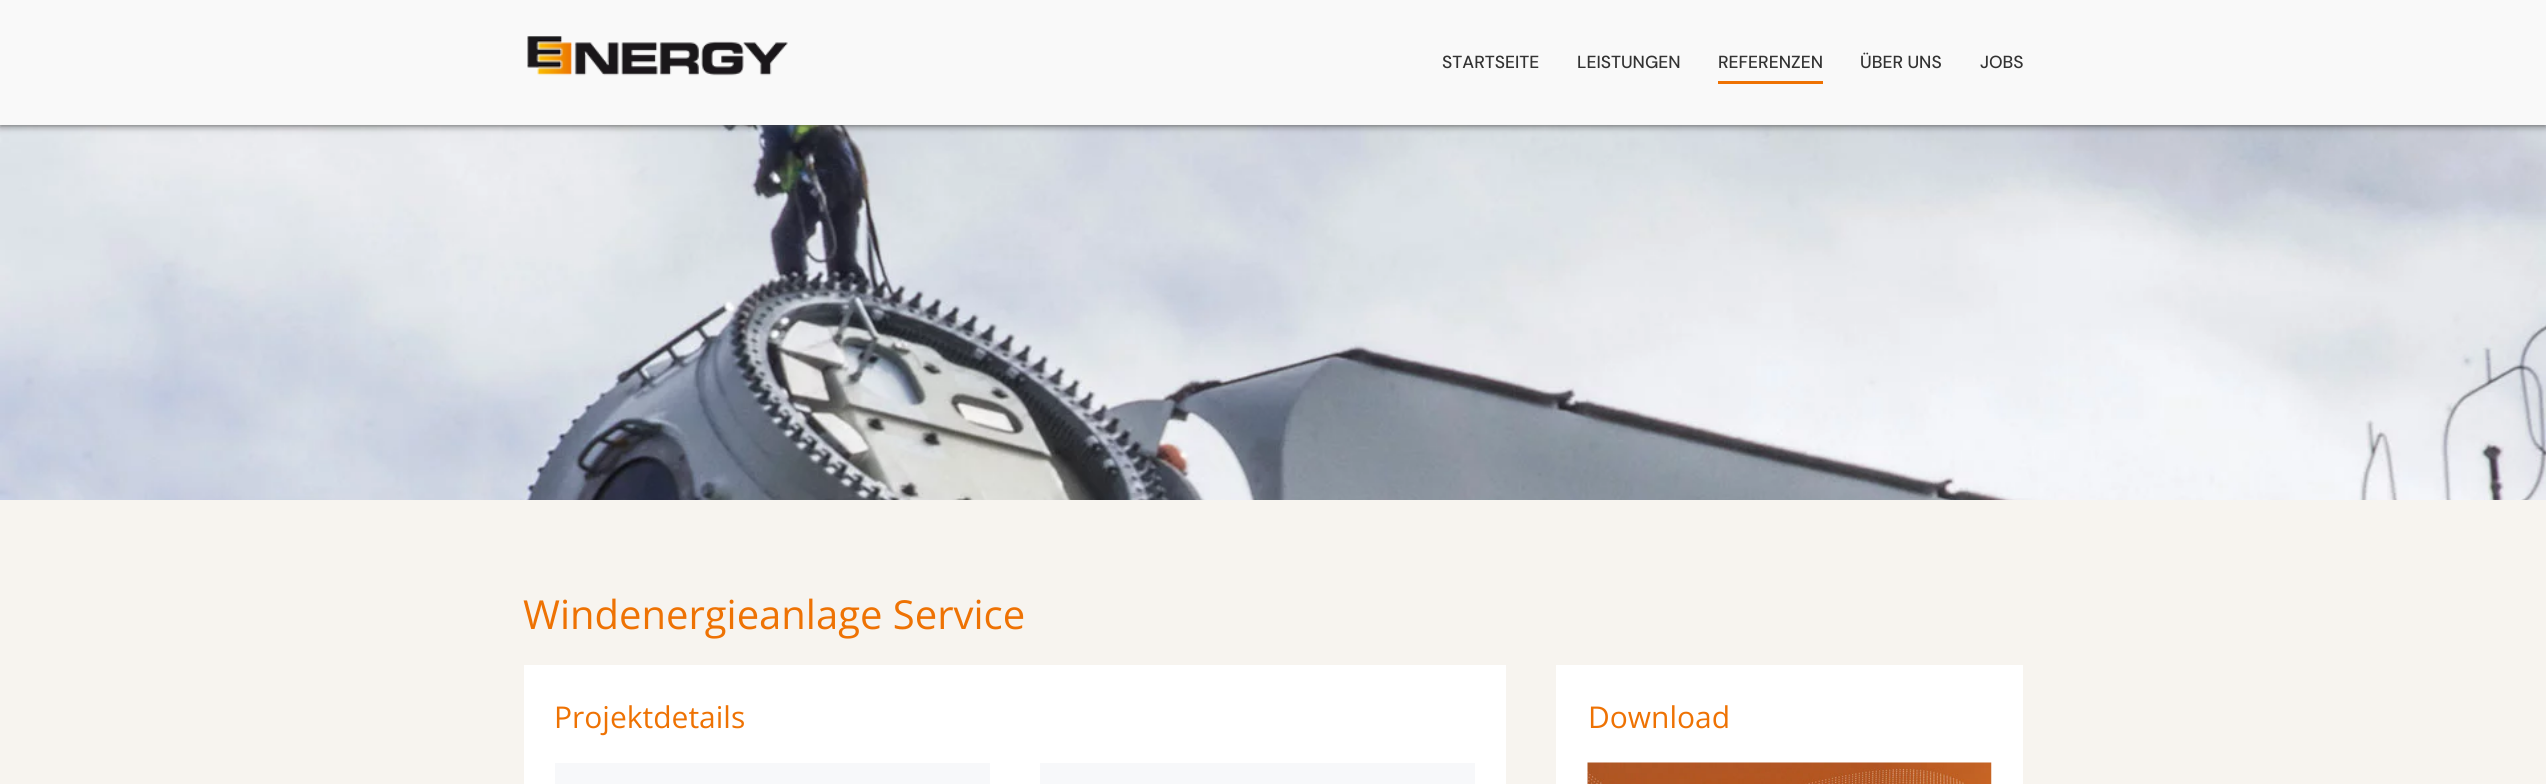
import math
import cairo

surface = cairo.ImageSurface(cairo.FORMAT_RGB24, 2546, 784)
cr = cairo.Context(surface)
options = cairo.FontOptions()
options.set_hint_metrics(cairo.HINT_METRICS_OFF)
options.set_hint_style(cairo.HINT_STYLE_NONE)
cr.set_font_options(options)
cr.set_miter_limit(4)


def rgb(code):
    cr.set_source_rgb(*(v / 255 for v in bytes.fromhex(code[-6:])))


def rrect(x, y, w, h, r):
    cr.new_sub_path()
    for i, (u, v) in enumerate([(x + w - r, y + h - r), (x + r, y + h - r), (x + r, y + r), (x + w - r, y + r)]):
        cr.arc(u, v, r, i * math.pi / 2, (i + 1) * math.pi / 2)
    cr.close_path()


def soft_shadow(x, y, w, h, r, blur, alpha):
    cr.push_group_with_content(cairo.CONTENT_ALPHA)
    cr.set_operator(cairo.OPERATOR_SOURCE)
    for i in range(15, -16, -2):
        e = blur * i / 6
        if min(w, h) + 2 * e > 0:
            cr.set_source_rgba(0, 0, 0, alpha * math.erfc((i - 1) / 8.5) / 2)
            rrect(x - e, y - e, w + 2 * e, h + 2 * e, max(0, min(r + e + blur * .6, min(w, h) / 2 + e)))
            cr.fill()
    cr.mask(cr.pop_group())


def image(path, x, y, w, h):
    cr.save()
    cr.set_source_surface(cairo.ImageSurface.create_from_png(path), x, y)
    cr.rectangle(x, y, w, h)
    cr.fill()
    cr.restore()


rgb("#f7f4ef")
cr.paint()
image("img/2.png", 0, 125, 2546, 375)
rgb("#434343")
soft_shadow(0, 0, 2546, 125, 0, 4, 1)
rgb("#f9f9f9")
cr.rectangle(0, 0, 2546, 125)
cr.fill()
image("img/1.png", 527, 36, 261, 40)
for x, y, w, h, color in [
    (1718, 81, 105, 3, "#ee7203"),
    (524, 665, 982, 119, "#ffffff"),
    (555, 763, 435, 21, "#f7f8fa"),
    (1040, 763, 435, 21, "#f7f8fa"),
    (1556, 665, 467, 119, "#ffffff"),
]:
    rgb(color)
    cr.rectangle(x, y, w, h)
    cr.fill()
image("img/3.png", 1587, 762, 405, 22)
cr.select_font_face("DM Sans Medium")
cr.set_font_size(17.5)
rgb("#333333")
for x, y, s in [
    (1442, 68, "STARTSEITE"),
    (1577, 68, "LEISTUNGEN"),
    (1718, 68, "REFERENZEN"),
    (1860, 68, "ÜBER UNS"),
    (1980, 68, "JOBS"),
]:
    cr.move_to(x, y)
    cr.show_text(s)
cr.select_font_face("Open Sans")
cr.set_font_size(40)
rgb("#ee7203")
cr.move_to(523, 629)
cr.show_text("Windenergieanlage Service")
cr.set_font_size(30)
cr.move_to(554, 728)
cr.show_text("Projektdetails")
cr.move_to(1588, 728)
cr.show_text("Download")
surface.write_to_png("page.png")
